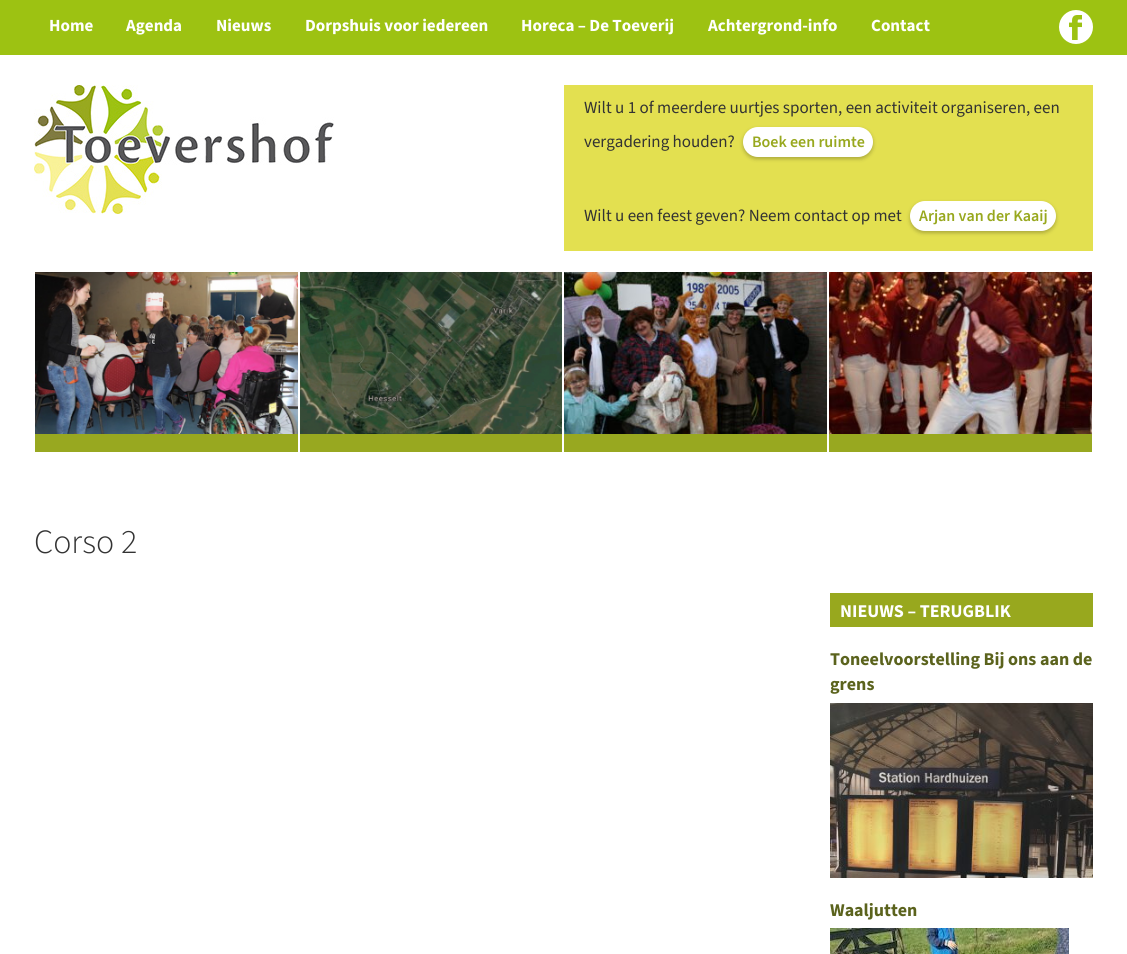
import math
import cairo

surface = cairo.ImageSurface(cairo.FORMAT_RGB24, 1127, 954)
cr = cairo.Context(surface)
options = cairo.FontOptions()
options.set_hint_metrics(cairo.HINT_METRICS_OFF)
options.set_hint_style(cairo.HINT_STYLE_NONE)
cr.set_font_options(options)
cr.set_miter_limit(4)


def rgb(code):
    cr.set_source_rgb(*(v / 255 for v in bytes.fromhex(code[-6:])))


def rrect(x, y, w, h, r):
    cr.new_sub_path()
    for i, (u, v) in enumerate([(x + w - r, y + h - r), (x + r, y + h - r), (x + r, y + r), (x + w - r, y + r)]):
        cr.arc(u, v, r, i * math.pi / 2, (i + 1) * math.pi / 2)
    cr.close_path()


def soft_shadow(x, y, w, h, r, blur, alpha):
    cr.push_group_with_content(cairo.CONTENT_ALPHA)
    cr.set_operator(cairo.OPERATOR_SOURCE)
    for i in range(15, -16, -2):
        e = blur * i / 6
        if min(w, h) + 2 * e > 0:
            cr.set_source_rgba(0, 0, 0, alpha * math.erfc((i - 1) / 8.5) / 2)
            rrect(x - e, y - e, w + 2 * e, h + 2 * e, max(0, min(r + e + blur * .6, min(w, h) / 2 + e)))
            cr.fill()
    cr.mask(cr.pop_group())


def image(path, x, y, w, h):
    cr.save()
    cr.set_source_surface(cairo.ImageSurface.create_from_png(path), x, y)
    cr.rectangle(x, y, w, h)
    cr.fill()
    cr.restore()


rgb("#ffffff")
cr.paint()
rgb("#9dc212")
cr.rectangle(0, 0, 1127, 55)
cr.fill()
image("img/1.png", 1059, 10, 34, 34)
image("img/2.png", 34, 85, 300, 129)
rgb("#e3e050")
cr.rectangle(564, 85, 529, 166)
cr.fill()
rgb("#000000")
soft_shadow(743, 129, 130, 30, 15, 2, 0.25)
rgb("#ffffff")
rrect(743, 127, 130, 30, 15)
cr.fill()
rgb("#000000")
soft_shadow(910, 203, 146, 30, 15, 2, 0.25)
rgb("#ffffff")
rrect(910, 201, 146, 30, 15)
cr.fill()
rgb("#98a820")
cr.rectangle(35, 434, 263, 18)
cr.fill()
image("img/3.png", 35, 272, 263, 162)
cr.rectangle(300, 434, 262, 18)
cr.fill()
image("img/4.png", 300, 272, 262, 162)
cr.rectangle(564, 434, 263, 18)
cr.fill()
image("img/5.png", 564, 272, 263, 162)
cr.rectangle(829, 434, 263, 18)
cr.fill()
image("img/6.png", 829, 272, 263, 162)
rgb("#98a81e")
cr.rectangle(830, 593, 263, 34)
cr.fill()
image("img/7.png", 830, 703, 263, 175)
image("img/8.png", 830, 928, 239, 26)
cr.select_font_face("Source Sans 3", cairo.FONT_SLANT_NORMAL, cairo.FONT_WEIGHT_BOLD)
cr.set_font_size(17)
rgb("#ffffff")
for x, y, s in [
    (49, 31, "Home"),
    (126, 31, "Agenda"),
    (216, 31, "Nieuws"),
    (305, 31, "Dorpshuis voor iedereen"),
    (521, 31, "Horeca – De Toeverij"),
    (708, 31, "Achtergrond-info"),
    (871, 31, "Contact"),
]:
    cr.move_to(x, y)
    cr.show_text(s)
cr.select_font_face("Source Sans 3")
rgb("#333333")
cr.move_to(584, 113)
cr.show_text("Wilt u 1 of meerdere uurtjes sporten, een activiteit organiseren, een")
cr.move_to(584, 147)
cr.show_text("vergadering houden?")
cr.select_font_face("Source Sans 3 SemiBold")
cr.set_font_size(16)
rgb("#98a81e")
cr.move_to(752, 147)
cr.show_text("Boek een ruimte")
cr.select_font_face("Source Sans 3")
cr.set_font_size(17)
rgb("#333333")
cr.move_to(584, 221)
cr.show_text("Wilt u een feest geven? Neem contact op met")
cr.select_font_face("Source Sans 3 SemiBold")
cr.set_font_size(16)
rgb("#98a81e")
cr.move_to(919, 221)
cr.show_text("Arjan van der Kaaij")
cr.select_font_face("Source Sans 3 Light")
cr.set_font_size(34)
rgb("#333333")
cr.move_to(34, 553)
cr.show_text("Corso 2")
cr.select_font_face("Source Sans 3", cairo.FONT_SLANT_NORMAL, cairo.FONT_WEIGHT_BOLD)
cr.set_font_size(18)
rgb("#ffffff")
cr.move_to(840, 617)
cr.show_text("NIEUWS – TERUGBLIK")
rgb("#5b631d")
for x, y, s in [
    (830, 665, "Toneelvoorstelling Bij ons aan de"),
    (830, 690, "grens"),
    (830, 916, "Waaljutten"),
]:
    cr.move_to(x, y)
    cr.show_text(s)
surface.write_to_png("page.png")
